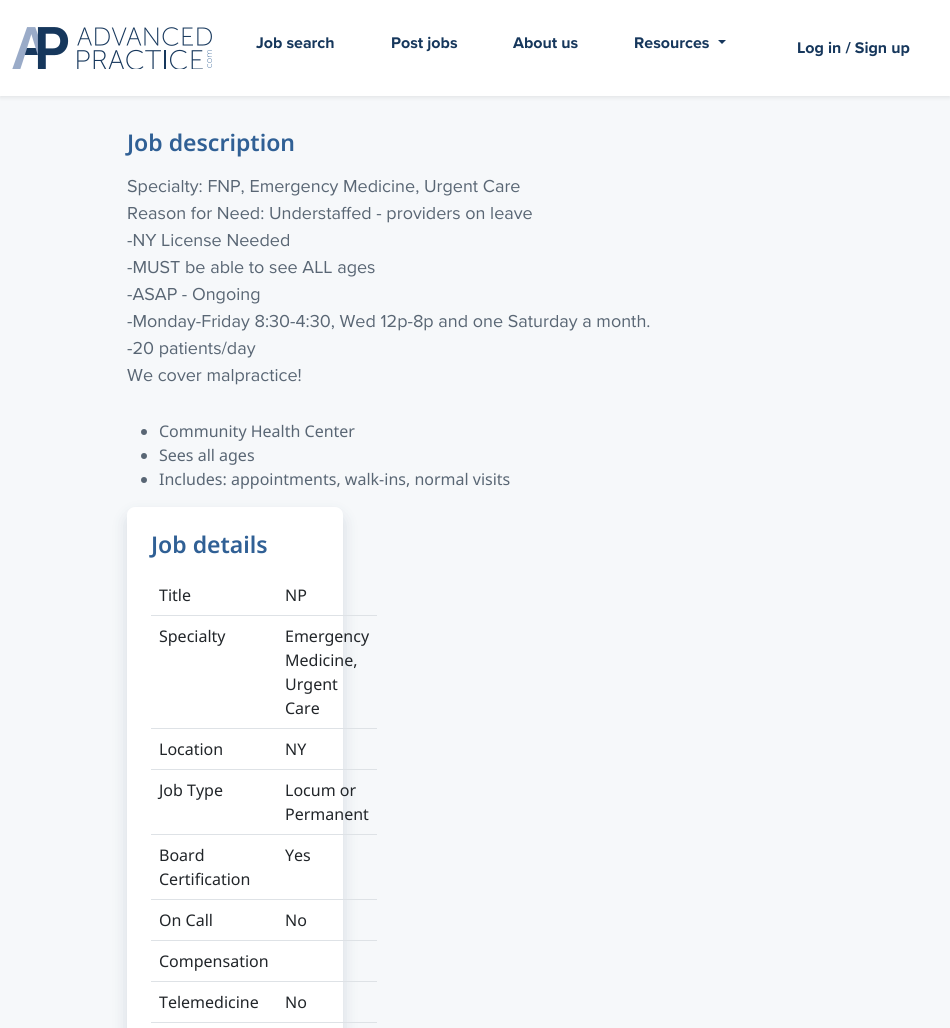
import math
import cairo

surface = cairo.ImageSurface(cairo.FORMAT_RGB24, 950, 1028)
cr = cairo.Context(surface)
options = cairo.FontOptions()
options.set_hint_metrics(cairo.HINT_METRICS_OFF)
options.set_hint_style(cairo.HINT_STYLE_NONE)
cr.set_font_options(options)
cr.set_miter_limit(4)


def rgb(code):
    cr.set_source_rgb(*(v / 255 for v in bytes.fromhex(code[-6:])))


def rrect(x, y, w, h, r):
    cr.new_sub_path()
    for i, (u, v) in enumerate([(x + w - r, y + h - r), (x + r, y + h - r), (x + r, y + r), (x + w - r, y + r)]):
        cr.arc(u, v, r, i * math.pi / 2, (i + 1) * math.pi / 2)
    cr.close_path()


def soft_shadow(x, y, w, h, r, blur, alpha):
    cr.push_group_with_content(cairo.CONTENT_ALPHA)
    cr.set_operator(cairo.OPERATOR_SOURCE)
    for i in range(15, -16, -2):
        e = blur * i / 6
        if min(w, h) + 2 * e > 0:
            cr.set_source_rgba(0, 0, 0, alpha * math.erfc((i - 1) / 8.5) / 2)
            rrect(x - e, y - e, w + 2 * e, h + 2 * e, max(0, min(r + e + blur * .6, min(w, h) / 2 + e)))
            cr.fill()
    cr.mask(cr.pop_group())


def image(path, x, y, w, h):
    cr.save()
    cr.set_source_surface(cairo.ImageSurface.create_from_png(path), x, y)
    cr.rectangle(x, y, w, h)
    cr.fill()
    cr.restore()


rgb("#f6f8fa")
cr.paint()
rgb("#000000")
soft_shadow(0, 2, 950, 96, 0, 2, 0.07)
rgb("#ffffff")
cr.rectangle(0, 0, 950, 96)
cr.fill()
image("img/1.png", 12, 27, 200, 42)
rgb("#16375c")
cr.new_path()
cr.move_to(718, 40)
cr.line_to(726, 40)
cr.line_to(722, 44)
cr.close_path()
cr.fill()
rgb("#596674")
cr.arc(144, 432, 3, 0, 2 * math.pi)
cr.fill()
cr.arc(144, 456, 3, 0, 2 * math.pi)
cr.fill()
cr.arc(144, 480, 3, 0, 2 * math.pi)
cr.fill()
rgb("#16375c")
soft_shadow(127, 515, 216, 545, 8, 8, 0.15)
rgb("#ffffff")
rrect(127, 507, 216, 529, 8)
cr.fill()
for x, y, w, h, color in [
    (151, 615, 226, 1, "#dee2e6"),
    (151, 728, 226, 1, "#dee2e6"),
    (151, 769, 226, 1, "#dee2e6"),
    (151, 834, 226, 1, "#dee2e6"),
    (151, 899, 226, 1, "#dee2e6"),
    (151, 940, 226, 1, "#dee2e6"),
    (151, 981, 226, 1, "#dee2e6"),
    (151, 1022, 226, 1, "#dee2e6"),
]:
    rgb(color)
    cr.rectangle(x, y, w, h)
    cr.fill()
cr.select_font_face("Proxima Nova", cairo.FONT_SLANT_NORMAL, cairo.FONT_WEIGHT_BOLD)
cr.set_font_size(16)
rgb("#16375c")
for x, y, s in [
    (256, 48, "Job search"),
    (391, 48, "Post jobs"),
    (513, 48, "About us"),
    (634, 48, "Resources"),
    (797, 53, "Log in / Sign up"),
]:
    cr.move_to(x, y)
    cr.show_text(s)
cr.select_font_face("Noto Sans SemiBold")
cr.set_font_size(23)
rgb("#306095")
cr.move_to(127, 151)
cr.show_text("Job description")
cr.select_font_face("Proxima Nova")
cr.set_font_size(18)
rgb("#596674")
for x, y, s in [
    (127, 192, "Specialty: FNP, Emergency Medicine, Urgent Care"),
    (127, 219, "Reason for Need: Understaffed - providers on leave"),
    (127, 246, "-NY License Needed"),
    (127, 273, "-MUST be able to see ALL ages"),
    (127, 300, "-ASAP - Ongoing"),
    (127, 327, "-Monday-Friday 8:30-4:30, Wed 12p-8p and one Saturday a month."),
    (127, 354, "-20 patients/day"),
    (127, 381, "We cover malpractice!"),
]:
    cr.move_to(x, y)
    cr.show_text(s)
cr.select_font_face("Noto Sans")
cr.set_font_size(16)
for x, y, s in [
    (159, 437, "Community Health Center"),
    (159, 461, "Sees all ages"),
    (159, 485, "Includes: appointments, walk-ins, normal visits"),
]:
    cr.move_to(x, y)
    cr.show_text(s)
cr.select_font_face("Noto Sans SemiBold")
cr.set_font_size(23)
rgb("#306095")
cr.move_to(151, 553)
cr.show_text("Job details")
cr.select_font_face("Noto Sans")
cr.set_font_size(16)
rgb("#212529")
for x, y, s in [
    (159, 601, "Title"),
    (285, 601, "NP"),
    (159, 642, "Specialty"),
    (285, 642, "Emergency"),
    (285, 666, "Medicine,"),
    (285, 690, "Urgent"),
    (285, 714, "Care"),
    (159, 755, "Location"),
    (285, 755, "NY"),
    (159, 796, "Job Type"),
    (285, 796, "Locum or"),
    (285, 820, "Permanent"),
    (159, 861, "Board"),
    (159, 885, "Certification"),
    (285, 861, "Yes"),
    (159, 926, "On Call"),
    (285, 926, "No"),
    (159, 967, "Compensation"),
    (159, 1008, "Telemedicine"),
    (285, 1008, "No"),
]:
    cr.move_to(x, y)
    cr.show_text(s)
surface.write_to_png("page.png")
